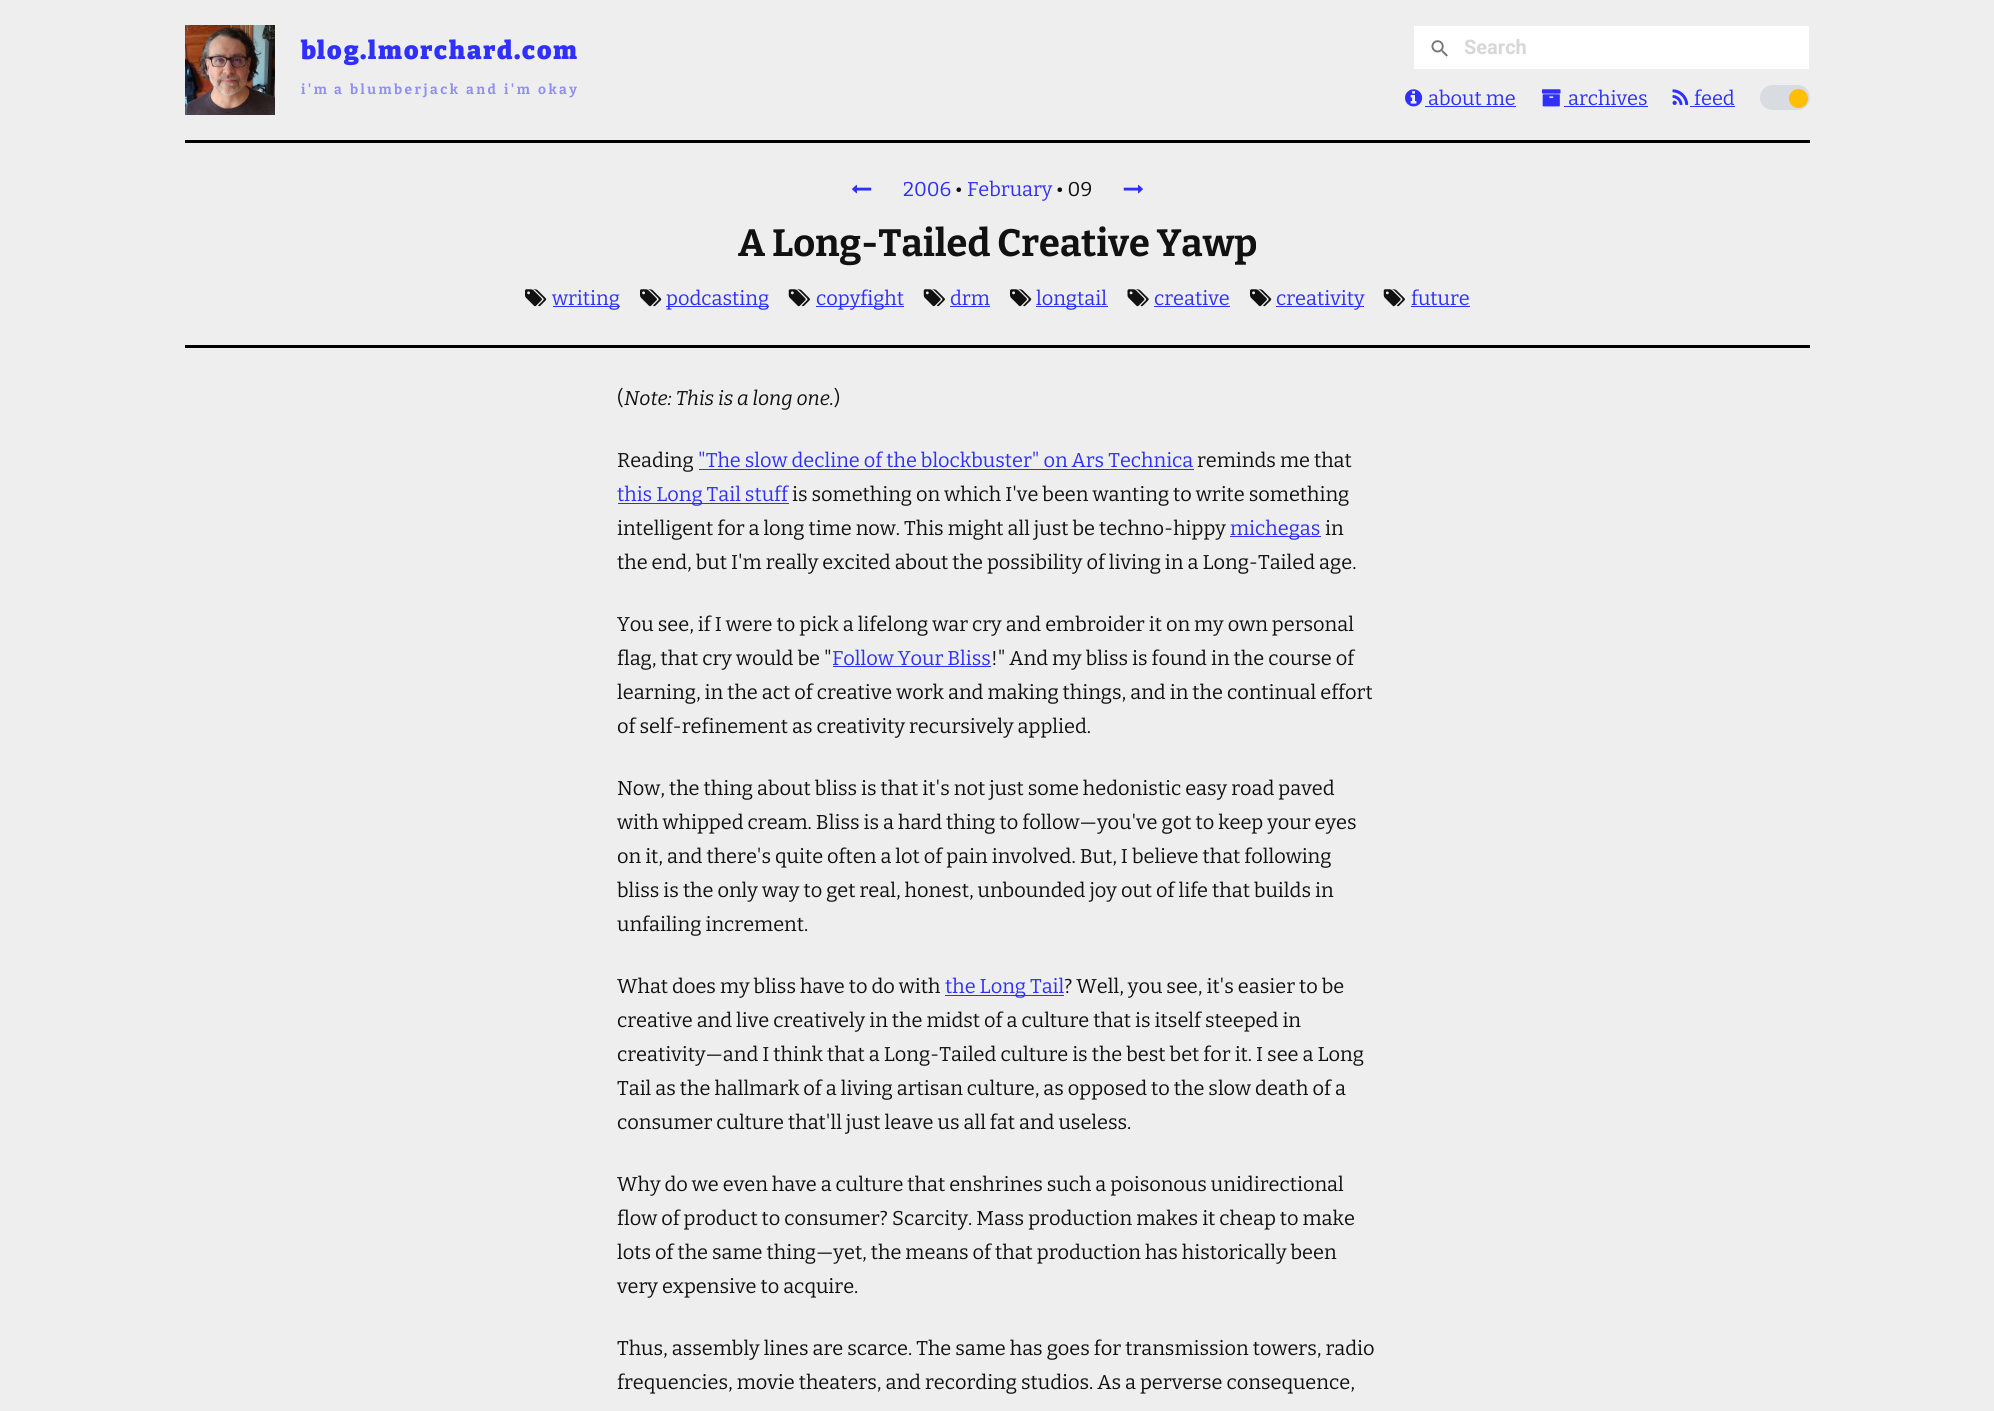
import math
import cairo

surface = cairo.ImageSurface(cairo.FORMAT_RGB24, 1994, 1411)
cr = cairo.Context(surface)
options = cairo.FontOptions()
options.set_hint_metrics(cairo.HINT_METRICS_OFF)
options.set_hint_style(cairo.HINT_STYLE_NONE)
cr.set_font_options(options)
cr.set_miter_limit(4)


def rgb(code):
    cr.set_source_rgb(*(v / 255 for v in bytes.fromhex(code[-6:])))


def rrect(x, y, w, h, r):
    cr.new_sub_path()
    for i, (u, v) in enumerate([(x + w - r, y + h - r), (x + r, y + h - r), (x + r, y + r), (x + w - r, y + r)]):
        cr.arc(u, v, r, i * math.pi / 2, (i + 1) * math.pi / 2)
    cr.close_path()


def image(path, x, y, w, h):
    cr.save()
    cr.set_source_surface(cairo.ImageSurface.create_from_png(path), x, y)
    cr.rectangle(x, y, w, h)
    cr.fill()
    cr.restore()


rgb("#eeeeee")
cr.paint()
image("img/1.png", 185, 25, 90, 90)
rgb("#ffffff")
cr.rectangle(1414, 26, 395, 43)
cr.fill()
image("img/2.png", 1431, 40, 17, 17)
image("img/3.png", 1405, 89, 18, 18)
rgb("#3030fc")
cr.rectangle(1425, 106, 91, 1)
cr.fill()
image("img/4.png", 1541, 89, 20, 18)
cr.rectangle(1564, 106, 84, 1)
cr.fill()
image("img/5.png", 1672, 89, 17, 16)
cr.rectangle(1690, 106, 45, 1)
cr.fill()
rgb("#d8dbe0")
rrect(1760, 85, 50, 25, 12.5)
cr.fill()
rgb("#ffbf00")
cr.arc(1798.5, 98.5, 9.5, 0, 2 * math.pi)
cr.fill()
rgb("#000000")
cr.rectangle(185, 140, 1625, 3)
cr.fill()
cr.rectangle(185, 345, 1625, 3)
cr.fill()
image("img/6.png", 852, 184, 20, 10)
image("img/7.png", 1123, 184, 20, 10)
image("img/8.png", 525, 289, 22, 18)
rgb("#3030fc")
cr.rectangle(553, 306, 67, 1)
cr.fill()
image("img/8.png", 640, 289, 22, 18)
cr.rectangle(666, 306, 103, 1)
cr.fill()
image("img/9.png", 788, 289, 22, 18)
cr.rectangle(816, 306, 88, 1)
cr.fill()
image("img/9.png", 923, 289, 22, 18)
cr.rectangle(950, 306, 40, 1)
cr.fill()
image("img/8.png", 1010, 289, 22, 18)
cr.rectangle(1036, 306, 72, 1)
cr.fill()
image("img/10.png", 1127, 289, 22, 18)
cr.rectangle(1154, 306, 76, 1)
cr.fill()
image("img/8.png", 1250, 289, 22, 18)
cr.rectangle(1276, 306, 88, 1)
cr.fill()
image("img/9.png", 1383, 289, 22, 18)
for x, y, w, h, color in [
    (1411, 306, 59, 1, "#3030fc"),
    (699, 469, 495, 1, "#3030fc"),
    (618, 503, 171, 1, "#3030fc"),
    (1230, 536, 91, 1, "#3030fc"),
    (833, 666, 158, 1, "#3030fc"),
    (945, 995, 119, 1, "#3030fc"),
]:
    rgb(color)
    cr.rectangle(x, y, w, h)
    cr.fill()
cr.select_font_face("Bitter Black")
cr.set_font_size(25)
for x, y, s in [
    (301, 59, "b"),
    (317, 59, "l"),
    (327, 59, "o"),
    (344, 59, "g"),
    (360, 59, "."),
    (368, 59, "l"),
    (378, 59, "m"),
    (404, 59, "o"),
    (420, 59, "r"),
    (434, 59, "c"),
    (449, 59, "h"),
    (467, 59, "a"),
    (483, 59, "r"),
    (497, 59, "d"),
    (514, 59, "."),
    (522, 59, "c"),
    (537, 59, "o"),
    (553, 59, "m"),
]:
    cr.move_to(x, y)
    cr.show_text(s)
cr.select_font_face("Bitter", cairo.FONT_SLANT_NORMAL, cairo.FONT_WEIGHT_BOLD)
cr.set_font_size(13.75)
rgb("#8f8ff5")
for x, y, s in [
    (301, 94, "i ' m"),
    (334, 94, "a"),
    (350, 94, "b l u m b e r j a c k"),
    (466, 94, "a n d"),
    (504, 94, "i ' m"),
    (538, 94, "o k a y"),
]:
    cr.move_to(x, y)
    cr.show_text(s)
cr.select_font_face("Roboto", cairo.FONT_SLANT_NORMAL, cairo.FONT_WEIGHT_BOLD)
cr.set_font_size(20)
rgb("#d7d7d7")
cr.move_to(1464, 54)
cr.show_text("Search")
cr.select_font_face("Bitter")
rgb("#3030fc")
for x, y, s in [
    (1428, 105, "about me"),
    (1568, 105, "archives"),
    (1694, 105, "feed"),
    (903, 196, "2006"),
]:
    cr.move_to(x, y)
    cr.show_text(s)
rgb("#111111")
cr.move_to(955, 196)
cr.show_text("•")
rgb("#3030fc")
cr.move_to(967, 196)
cr.show_text("February")
rgb("#111111")
cr.move_to(1056, 196)
cr.show_text("• 09")
cr.select_font_face("Bitter", cairo.FONT_SLANT_NORMAL, cairo.FONT_WEIGHT_BOLD)
cr.set_font_size(38)
cr.move_to(738, 256)
cr.show_text("A Long-Tailed Creative Yawp")
cr.select_font_face("Bitter")
cr.set_font_size(20)
rgb("#3030fc")
for x, y, s in [
    (552, 305, "writing"),
    (666, 305, "podcasting"),
    (816, 305, "copyfight"),
    (950, 305, "drm"),
    (1036, 305, "longtail"),
    (1154, 305, "creative"),
    (1276, 305, "creativity"),
    (1411, 305, "future"),
]:
    cr.move_to(x, y)
    cr.show_text(s)
rgb("#111111")
cr.move_to(617, 405)
cr.show_text("(")
cr.select_font_face("Bitter", cairo.FONT_SLANT_ITALIC)
cr.move_to(624, 405)
cr.show_text("Note: This is a long one.")
cr.select_font_face("Bitter")
cr.move_to(834, 405)
cr.show_text(")")
cr.move_to(617, 467)
cr.show_text("Reading")
rgb("#3030fc")
cr.move_to(698, 467)
cr.show_text("\"The slow decline of the blockbuster\" on Ars Technica")
rgb("#111111")
cr.move_to(1197, 467)
cr.show_text("reminds me that")
rgb("#3030fc")
cr.move_to(617, 501)
cr.show_text("this Long Tail stuff")
rgb("#111111")
cr.move_to(792, 501)
cr.show_text("is something on which I've been wanting to write something")
cr.move_to(617, 535)
cr.show_text("intelligent for a long time now. This might all just be techno-hippy")
rgb("#3030fc")
cr.move_to(1230, 535)
cr.show_text("michegas")
rgb("#111111")
for x, y, s in [
    (1325, 535, "in"),
    (617, 569, "the end, but I'm really excited about the possibility of living in a Long-Tailed age."),
    (617, 631, "You see, if I were to pick a lifelong war cry and embroider it on my own personal"),
    (617, 665, "flag, that cry would be \""),
]:
    cr.move_to(x, y)
    cr.show_text(s)
rgb("#3030fc")
cr.move_to(832, 665)
cr.show_text("Follow Your Bliss")
rgb("#111111")
for x, y, s in [
    (991, 665, "!\" And my bliss is found in the course of"),
    (617, 699, "learning, in the act of creative work and making things, and in the continual effort"),
    (617, 733, "of self-refinement as creativity recursively applied."),
    (617, 795, "Now, the thing about bliss is that it's not just some hedonistic easy road paved"),
    (617, 829, "with whipped cream. Bliss is a hard thing to follow—you've got to keep your eyes"),
    (617, 863, "on it, and there's quite often a lot of pain involved. But, I believe that following"),
    (617, 897, "bliss is the only way to get real, honest, unbounded joy out of life that builds in"),
    (617, 931, "unfailing increment."),
    (617, 993, "What does my bliss have to do with"),
]:
    cr.move_to(x, y)
    cr.show_text(s)
rgb("#3030fc")
cr.move_to(945, 993)
cr.show_text("the Long Tail")
rgb("#111111")
for x, y, s in [
    (1064, 993, "? Well, you see, it's easier to be"),
    (617, 1027, "creative and live creatively in the midst of a culture that is itself steeped in"),
    (617, 1061, "creativity—and I think that a Long-Tailed culture is the best bet for it. I see a Long"),
    (617, 1095, "Tail as the hallmark of a living artisan culture, as opposed to the slow death of a"),
    (617, 1129, "consumer culture that'll just leave us all fat and useless."),
    (617, 1191, "Why do we even have a culture that enshrines such a poisonous unidirectional"),
    (617, 1225, "flow of product to consumer? Scarcity. Mass production makes it cheap to make"),
    (617, 1259, "lots of the same thing—yet, the means of that production has historically been"),
    (617, 1293, "very expensive to acquire."),
    (617, 1355, "Thus, assembly lines are scarce. The same has goes for transmission towers, radio"),
    (617, 1389, "frequencies, movie theaters, and recording studios. As a perverse consequence,"),
]:
    cr.move_to(x, y)
    cr.show_text(s)
surface.write_to_png("page.png")
